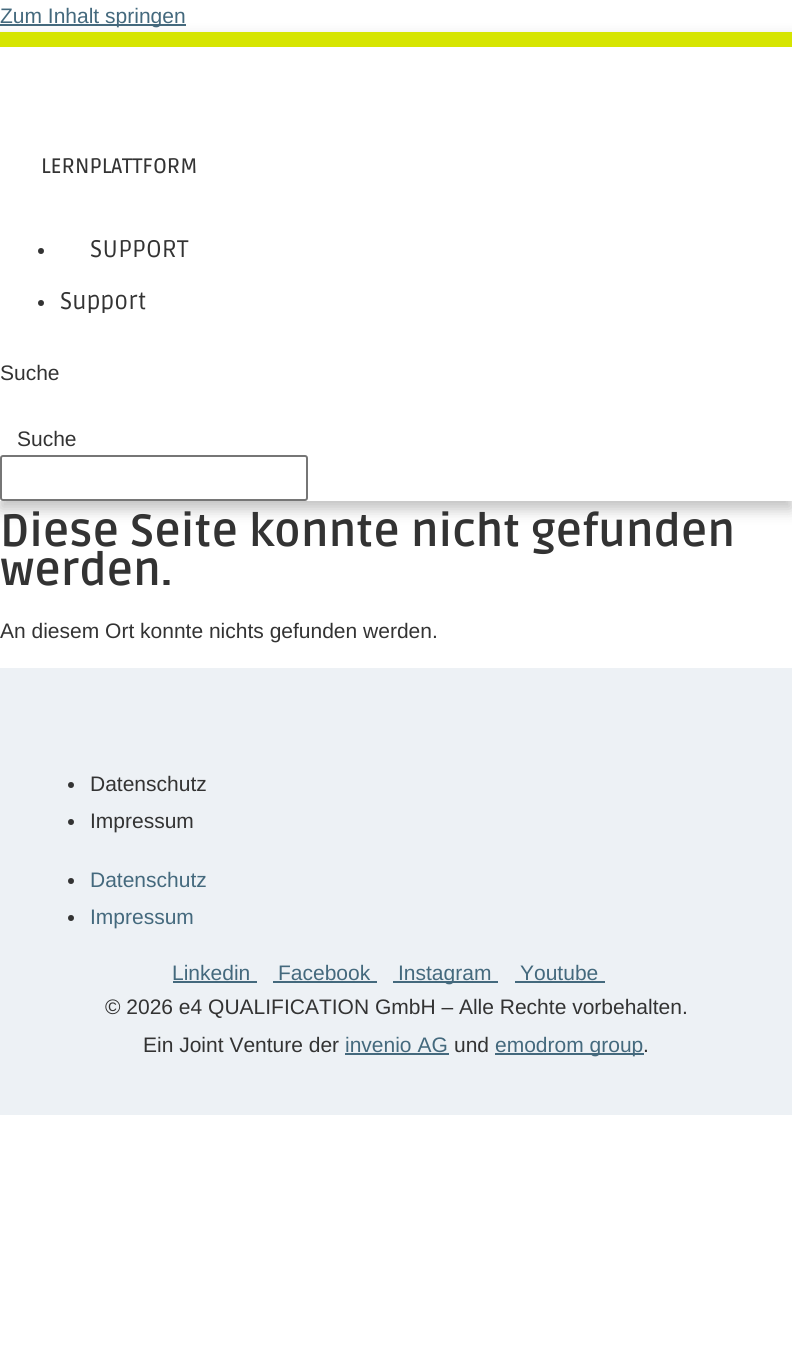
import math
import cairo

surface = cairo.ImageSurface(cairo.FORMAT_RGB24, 792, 1366)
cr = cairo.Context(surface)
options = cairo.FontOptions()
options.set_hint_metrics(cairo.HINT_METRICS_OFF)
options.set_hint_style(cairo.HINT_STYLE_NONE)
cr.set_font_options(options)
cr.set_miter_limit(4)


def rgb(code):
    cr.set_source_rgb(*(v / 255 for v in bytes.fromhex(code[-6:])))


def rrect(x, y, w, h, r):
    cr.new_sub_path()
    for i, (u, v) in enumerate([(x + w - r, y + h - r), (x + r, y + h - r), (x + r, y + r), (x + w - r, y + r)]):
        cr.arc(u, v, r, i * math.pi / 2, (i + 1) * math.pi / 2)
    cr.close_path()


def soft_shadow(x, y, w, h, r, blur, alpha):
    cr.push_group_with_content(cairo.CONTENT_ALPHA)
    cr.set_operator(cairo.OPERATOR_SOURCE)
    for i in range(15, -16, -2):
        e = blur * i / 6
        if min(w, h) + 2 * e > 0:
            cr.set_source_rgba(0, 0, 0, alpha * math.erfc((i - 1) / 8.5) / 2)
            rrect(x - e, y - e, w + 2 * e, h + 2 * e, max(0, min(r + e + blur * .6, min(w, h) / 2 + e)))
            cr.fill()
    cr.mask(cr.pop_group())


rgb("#ffffff")
cr.paint()
cr.save()
cr.set_fill_rule(cairo.FILL_RULE_EVEN_ODD)
cr.new_path()
cr.move_to(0, 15)
cr.line_to(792, 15)
cr.line_to(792, 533)
cr.line_to(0, 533)
cr.close_path()
cr.move_to(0, 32)
cr.line_to(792, 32)
cr.line_to(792, 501)
cr.line_to(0, 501)
cr.close_path()
cr.clip()
rgb("#000000")
soft_shadow(0, 39, 792, 470, 0, 7.5, 0.25)
cr.restore()
rgb("#44697d")
cr.rectangle(0, 24, 186, 2)
cr.fill()
rgb("#d6e501")
cr.rectangle(0, 32, 792, 15)
cr.fill()
rgb("#333333")
cr.arc(41, 251, 3, 0, 2 * math.pi)
cr.fill()
cr.arc(41, 303, 3, 0, 2 * math.pi)
cr.fill()
rrect(1, 456, 306, 44, 2)
rgb("#767676")
cr.stroke()
rgb("#edf1f5")
cr.rectangle(0, 668, 792, 447)
cr.fill()
rgb("#333333")
cr.arc(71, 785, 3, 0, 2 * math.pi)
cr.fill()
cr.arc(71, 822, 3, 0, 2 * math.pi)
cr.fill()
cr.arc(71, 881, 3, 0, 2 * math.pi)
cr.fill()
cr.arc(71, 918, 3, 0, 2 * math.pi)
cr.fill()
for x, y, w, h, color in [
    (173, 981, 84, 2, "#44697d"),
    (273, 981, 104, 2, "#44697d"),
    (393, 981, 105, 2, "#44697d"),
    (515, 981, 5, 2, "#44697d"),
    (519, 981, 1, 2, "#edf1f5"),
    (519, 981, 86, 2, "#44697d"),
    (345, 1053, 104, 2, "#44697d"),
    (495, 1053, 149, 2, "#44697d"),
]:
    rgb(color)
    cr.rectangle(x, y, w, h)
    cr.fill()
cr.select_font_face("Liberation Sans")
cr.set_font_size(21)
cr.move_to(0, 23)
cr.show_text("Zum Inhalt springen")
cr.select_font_face("Ruda Medium")
rgb("#333333")
cr.move_to(41, 173)
cr.show_text("LERNPLATTFORM")
cr.select_font_face("Ruda")
cr.set_font_size(24)
cr.move_to(90, 257)
cr.show_text("SUPPORT")
cr.move_to(60, 309)
cr.show_text("Support")
cr.select_font_face("Liberation Sans")
cr.set_font_size(21)
cr.move_to(0, 380)
cr.show_text("Suche")
cr.move_to(17, 446)
cr.show_text("Suche")
cr.select_font_face("Ruda", cairo.FONT_SLANT_NORMAL, cairo.FONT_WEIGHT_BOLD)
cr.set_font_size(45)
cr.move_to(0, 546)
cr.show_text("Diese Seite konnte nicht gefunden")
cr.move_to(0, 585)
cr.show_text("werden.")
cr.select_font_face("Liberation Sans")
cr.set_font_size(21)
for x, y, s in [
    (0, 638, "An diesem Ort konnte nichts gefunden werden."),
    (90, 791, "Datenschutz"),
    (90, 828, "Impressum"),
]:
    cr.move_to(x, y)
    cr.show_text(s)
rgb("#44697d")
for x, y, s in [
    (90, 887, "Datenschutz"),
    (90, 924, "Impressum"),
    (172, 980, "Linkedin"),
    (278, 980, "Facebook"),
    (398, 980, "Instagram"),
    (520, 980, "Youtube"),
]:
    cr.move_to(x, y)
    cr.show_text(s)
rgb("#333333")
cr.move_to(105, 1014)
cr.show_text("© 2026 e4 QUALIFICATION GmbH – Alle Rechte vorbehalten.")
cr.move_to(143, 1052)
cr.show_text("Ein Joint Venture der")
rgb("#44697d")
cr.move_to(345, 1052)
cr.show_text("invenio AG")
rgb("#333333")
cr.move_to(454, 1052)
cr.show_text("und")
rgb("#44697d")
cr.move_to(495, 1052)
cr.show_text("emodrom group")
rgb("#333333")
cr.move_to(643, 1052)
cr.show_text(".")
surface.write_to_png("page.png")
